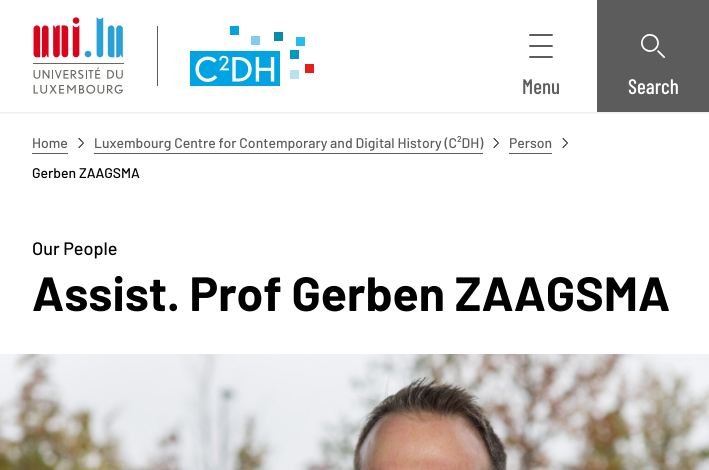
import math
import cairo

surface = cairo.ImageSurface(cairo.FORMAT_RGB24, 709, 470)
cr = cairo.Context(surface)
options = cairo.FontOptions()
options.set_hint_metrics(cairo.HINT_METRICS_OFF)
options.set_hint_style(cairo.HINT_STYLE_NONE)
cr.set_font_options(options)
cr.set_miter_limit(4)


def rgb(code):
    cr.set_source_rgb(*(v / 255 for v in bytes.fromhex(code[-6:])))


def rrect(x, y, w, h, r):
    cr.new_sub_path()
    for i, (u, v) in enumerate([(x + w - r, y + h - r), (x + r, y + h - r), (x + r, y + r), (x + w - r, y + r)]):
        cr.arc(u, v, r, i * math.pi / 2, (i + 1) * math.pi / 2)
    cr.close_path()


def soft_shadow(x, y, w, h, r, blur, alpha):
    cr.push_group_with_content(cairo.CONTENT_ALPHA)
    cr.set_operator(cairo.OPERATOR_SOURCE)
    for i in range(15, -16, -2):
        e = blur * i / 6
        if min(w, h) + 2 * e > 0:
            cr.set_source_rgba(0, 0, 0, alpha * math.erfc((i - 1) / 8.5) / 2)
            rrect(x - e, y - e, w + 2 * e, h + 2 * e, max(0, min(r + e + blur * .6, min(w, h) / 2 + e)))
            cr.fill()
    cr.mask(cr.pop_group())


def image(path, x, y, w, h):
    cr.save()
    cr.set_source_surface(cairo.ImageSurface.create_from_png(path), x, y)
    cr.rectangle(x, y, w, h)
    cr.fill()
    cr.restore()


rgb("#ffffff")
cr.paint()
cr.save()
cr.rectangle(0, 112, 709, 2)
cr.clip()
rgb("#000000")
soft_shadow(0, 1, 709, 112, 0, 1.5, 0.1)
cr.restore()
image("img/1.png", 33, 17, 91, 77)
rgb("#5c5c5c")
cr.rectangle(157, 26, 1, 60)
cr.fill()
image("img/2.png", 190, 26, 124, 60)
image("img/3.png", 529, 34, 24, 24)
cr.rectangle(597, 0, 112, 112)
cr.fill()
image("img/4.png", 641, 34, 24, 24)
cr.rectangle(32, 153, 36, 1)
cr.fill()
image("img/5.png", 78, 138, 6, 10)
cr.rectangle(94, 153, 389, 1)
cr.fill()
image("img/5.png", 493, 138, 6, 10)
cr.rectangle(509, 153, 43, 1)
cr.fill()
image("img/5.png", 562, 138, 6, 10)
image("img/6.png", 0, 354, 709, 116)
cr.select_font_face("Barlow Condensed Medium")
cr.set_font_size(21)
cr.move_to(522, 94)
cr.show_text("Menu")
rgb("#ffffff")
cr.move_to(628, 94)
cr.show_text("Search")
cr.select_font_face("Barlow Medium")
cr.set_font_size(14)
rgb("#5c5c5c")
for x, y, s in [
    (32, 148, "Home"),
    (94, 148, "Luxembourg Centre for Contemporary and Digital History (C²DH)"),
    (509, 148, "Person"),
]:
    cr.move_to(x, y)
    cr.show_text(s)
rgb("#000000")
cr.move_to(32, 178)
cr.show_text("Gerben ZAAGSMA")
cr.set_font_size(18)
cr.move_to(32, 255)
cr.show_text("Our People")
cr.select_font_face("Barlow", cairo.FONT_SLANT_NORMAL, cairo.FONT_WEIGHT_BOLD)
cr.set_font_size(48)
cr.move_to(32, 311)
cr.show_text("Assist. Prof Gerben ZAAGSMA")
surface.write_to_png("page.png")
